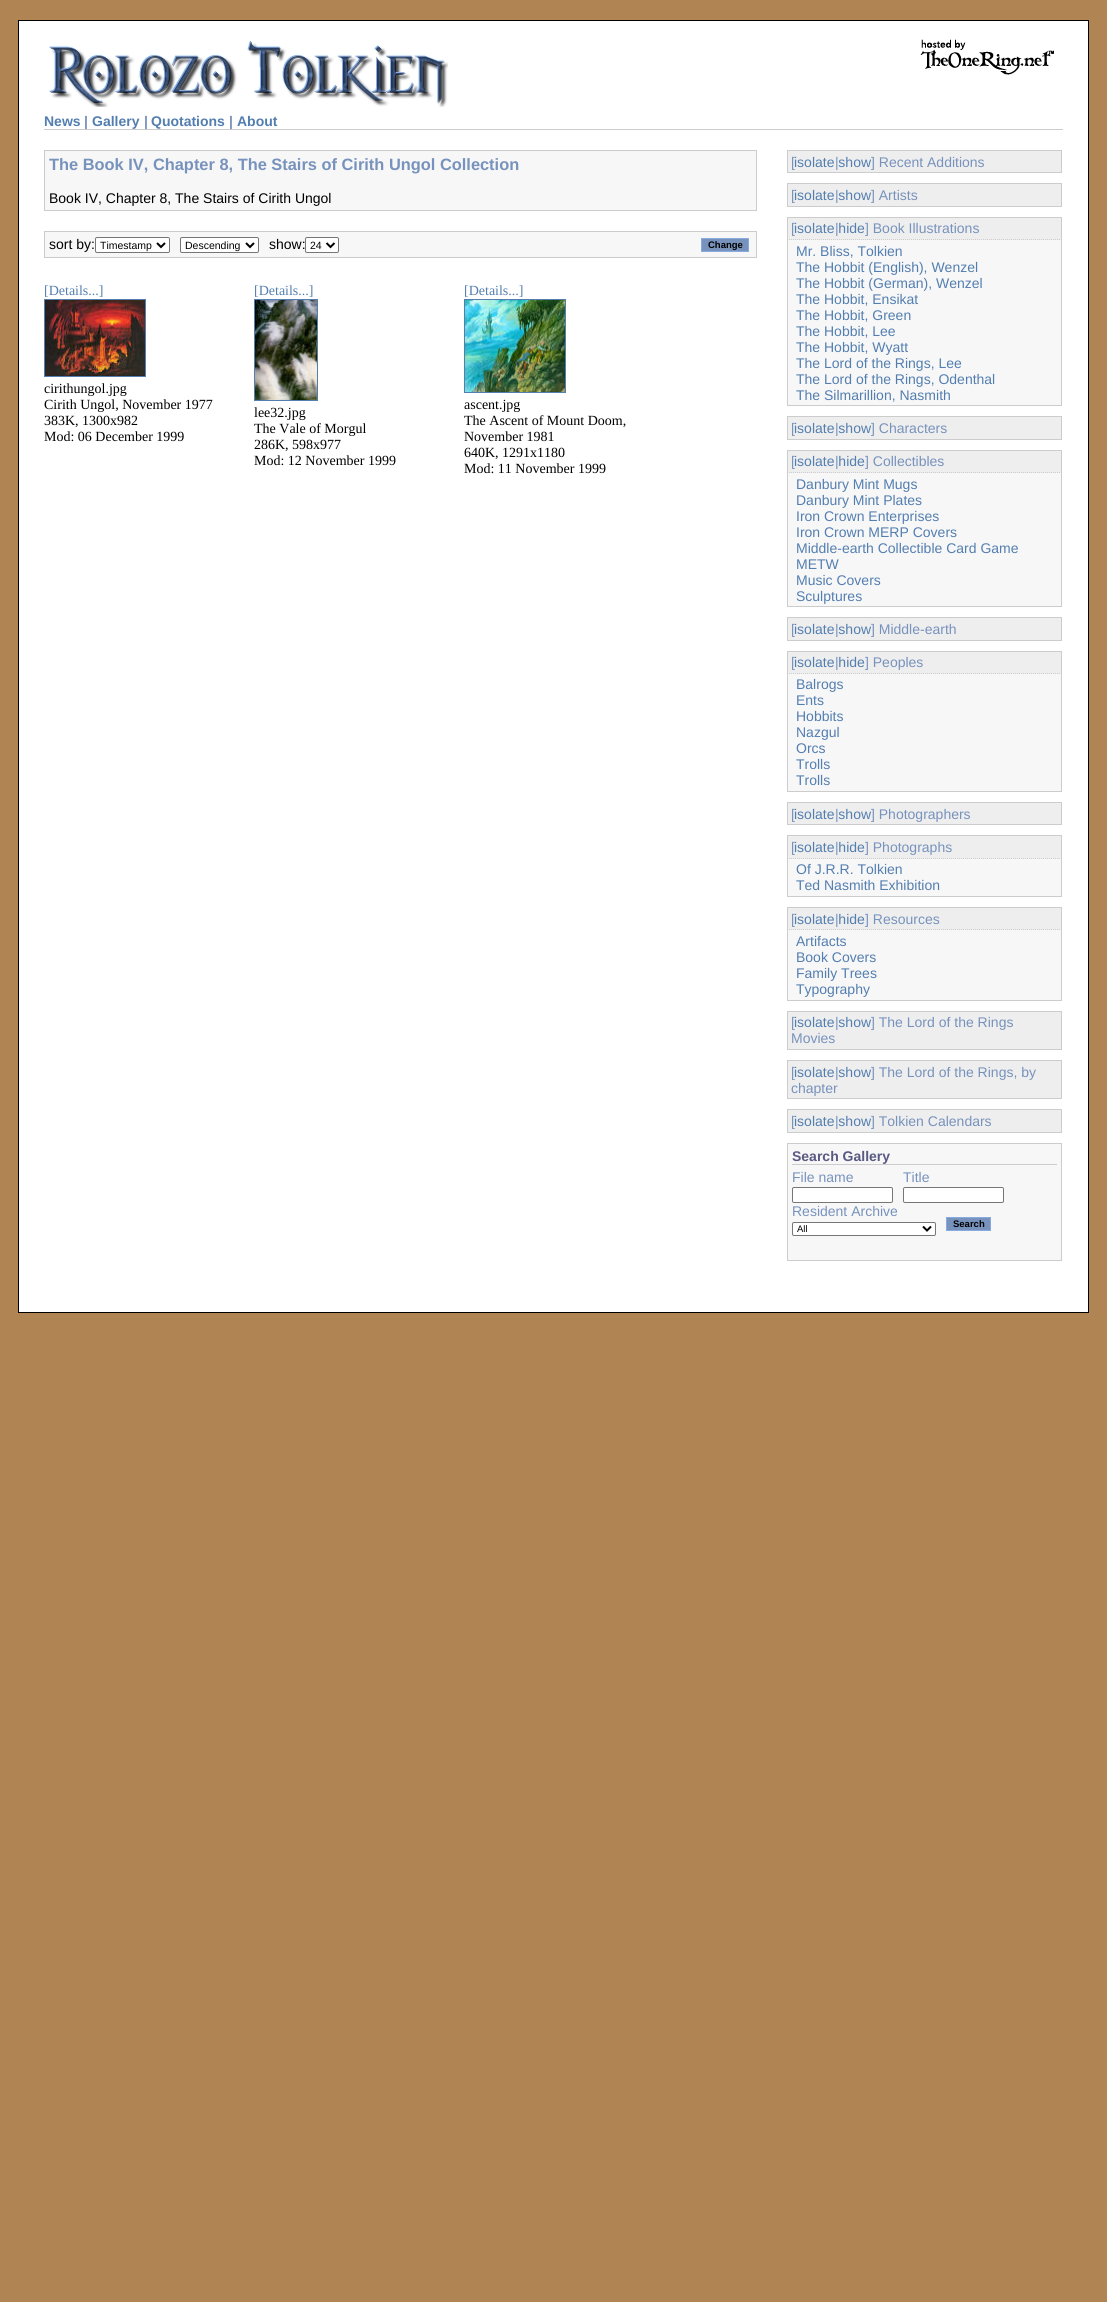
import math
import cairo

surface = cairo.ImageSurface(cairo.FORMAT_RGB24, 1107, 2302)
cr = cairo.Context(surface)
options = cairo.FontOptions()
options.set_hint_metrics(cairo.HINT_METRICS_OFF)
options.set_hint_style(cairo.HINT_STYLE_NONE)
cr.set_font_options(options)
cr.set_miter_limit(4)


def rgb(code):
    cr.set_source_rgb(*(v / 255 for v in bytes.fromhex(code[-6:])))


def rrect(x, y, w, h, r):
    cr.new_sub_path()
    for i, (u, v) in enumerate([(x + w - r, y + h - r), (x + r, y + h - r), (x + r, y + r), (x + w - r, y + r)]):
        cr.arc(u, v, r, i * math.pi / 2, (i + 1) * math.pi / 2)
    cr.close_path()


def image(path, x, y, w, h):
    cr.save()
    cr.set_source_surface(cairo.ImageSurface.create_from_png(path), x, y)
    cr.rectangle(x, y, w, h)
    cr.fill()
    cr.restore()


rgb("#b08553")
cr.paint()
rgb("#ffffff")
cr.rectangle(18.5, 20.5, 1070, 1292)
cr.fill_preserve()
rgb("#000000")
cr.set_line_width(1)
cr.stroke()
image("img/1.png", 49, 40, 399, 67)
image("img/2.png", 920, 39, 134, 36)
rgb("#cccccc")
cr.rectangle(44, 129, 1019, 1)
cr.fill()
rgb("#f7f7f7")
cr.rectangle(44.5, 150.5, 712, 60)
cr.fill_preserve()
rgb("#cccccc")
cr.stroke()
rgb("#f7f7f7")
cr.rectangle(44.5, 231.5, 712, 26)
cr.fill_preserve()
rgb("#cccccc")
cr.stroke()
rgb("#ffffff")
rrect(95.5, 237.5, 74, 15, 1.5)
cr.fill_preserve()
rgb("#767676")
cr.stroke()
cr.new_path()
cr.move_to(157, 243)
cr.line_to(161, 247)
cr.line_to(165, 243)
rgb("#000000")
cr.set_line_width(2)
cr.stroke()
rgb("#ffffff")
rrect(180.5, 237.5, 78, 15, 1.5)
cr.fill_preserve()
rgb("#767676")
cr.set_line_width(1)
cr.stroke()
cr.new_path()
cr.move_to(246, 243)
cr.line_to(250, 247)
cr.line_to(254, 243)
rgb("#000000")
cr.set_line_width(2)
cr.stroke()
rgb("#ffffff")
rrect(305.5, 237.5, 33, 15, 1.5)
cr.fill_preserve()
rgb("#767676")
cr.set_line_width(1)
cr.stroke()
cr.new_path()
cr.move_to(326.5, 243)
cr.line_to(330.5, 247)
cr.line_to(334.5, 243)
rgb("#000000")
cr.set_line_width(2)
cr.stroke()
rgb("#7792bc")
cr.rectangle(701.5, 238.5, 47, 13)
cr.fill_preserve()
rgb("#88aadd")
cr.set_line_width(1)
cr.stroke()
cr.rectangle(44.5, 299.5, 101, 77)
rgb("#537eb0")
cr.stroke()
image("img/3.png", 45, 300, 100, 76)
cr.rectangle(254.5, 299.5, 63, 101)
cr.stroke()
image("img/4.png", 255, 300, 62, 100)
cr.rectangle(464.5, 299.5, 101, 93)
cr.stroke()
image("img/5.png", 465, 300, 100, 92)
rgb("#eeeeee")
cr.rectangle(787.5, 150.5, 274, 22)
cr.fill_preserve()
rgb("#cccccc")
cr.stroke()
rgb("#eeeeee")
cr.rectangle(787.5, 183.5, 274, 23)
cr.fill_preserve()
rgb("#cccccc")
cr.stroke()
for x, y, w, h, color in [
    (788, 218, 273, 22, "#eeeeee"),
    (787, 217, 275, 1, "#cccccc"),
    (1061, 217, 1, 189, "#cccccc"),
]:
    rgb(color)
    cr.rectangle(x, y, w, h)
    cr.fill()
cr.new_path()
cr.move_to(787, 239.5)
cr.line_to(1062, 239.5)
cr.set_dash([1, 1])
cr.stroke()
for x, y, w, h, color in [
    (787, 217, 1, 23, "#cccccc"),
    (788, 240, 273, 165, "#f7f7f7"),
    (787, 405, 275, 1, "#cccccc"),
    (787, 240, 1, 166, "#cccccc"),
]:
    rgb(color)
    cr.rectangle(x, y, w, h)
    cr.fill()
rgb("#eeeeee")
cr.rectangle(787.5, 416.5, 274, 23)
cr.fill_preserve()
rgb("#cccccc")
cr.set_dash([])
cr.stroke()
for x, y, w, h, color in [
    (788, 451, 273, 22, "#eeeeee"),
    (787, 450, 275, 1, "#cccccc"),
    (1061, 450, 1, 157, "#cccccc"),
]:
    rgb(color)
    cr.rectangle(x, y, w, h)
    cr.fill()
cr.new_path()
cr.move_to(787, 472.5)
cr.line_to(1062, 472.5)
cr.set_dash([1, 1])
cr.stroke()
for x, y, w, h, color in [
    (787, 450, 1, 23, "#cccccc"),
    (788, 473, 273, 133, "#f7f7f7"),
    (787, 606, 275, 1, "#cccccc"),
    (787, 473, 1, 134, "#cccccc"),
]:
    rgb(color)
    cr.rectangle(x, y, w, h)
    cr.fill()
rgb("#eeeeee")
cr.rectangle(787.5, 617.5, 274, 23)
cr.fill_preserve()
rgb("#cccccc")
cr.set_dash([])
cr.stroke()
for x, y, w, h, color in [
    (788, 652, 273, 22, "#eeeeee"),
    (787, 651, 275, 1, "#cccccc"),
    (1061, 651, 1, 141, "#cccccc"),
]:
    rgb(color)
    cr.rectangle(x, y, w, h)
    cr.fill()
cr.new_path()
cr.move_to(787, 673.5)
cr.line_to(1062, 673.5)
cr.set_dash([1, 1])
cr.stroke()
for x, y, w, h, color in [
    (787, 651, 1, 23, "#cccccc"),
    (788, 674, 273, 117, "#f7f7f7"),
    (787, 791, 275, 1, "#cccccc"),
    (787, 674, 1, 118, "#cccccc"),
]:
    rgb(color)
    cr.rectangle(x, y, w, h)
    cr.fill()
rgb("#eeeeee")
cr.rectangle(787.5, 802.5, 274, 22)
cr.fill_preserve()
rgb("#cccccc")
cr.set_dash([])
cr.stroke()
for x, y, w, h, color in [
    (788, 836, 273, 23, "#eeeeee"),
    (787, 835, 275, 1, "#cccccc"),
    (1061, 835, 1, 62, "#cccccc"),
]:
    rgb(color)
    cr.rectangle(x, y, w, h)
    cr.fill()
cr.new_path()
cr.move_to(787, 858.5)
cr.line_to(1062, 858.5)
cr.set_dash([1, 1])
cr.stroke()
for x, y, w, h, color in [
    (787, 835, 1, 24, "#cccccc"),
    (788, 859, 273, 37, "#f7f7f7"),
    (787, 896, 275, 1, "#cccccc"),
    (787, 859, 1, 38, "#cccccc"),
    (788, 908, 273, 22, "#eeeeee"),
    (787, 907, 275, 1, "#cccccc"),
    (1061, 907, 1, 94, "#cccccc"),
]:
    rgb(color)
    cr.rectangle(x, y, w, h)
    cr.fill()
cr.new_path()
cr.move_to(787, 929.5)
cr.line_to(1062, 929.5)
cr.stroke()
for x, y, w, h, color in [
    (787, 907, 1, 23, "#cccccc"),
    (788, 930, 273, 70, "#f7f7f7"),
    (787, 1000, 275, 1, "#cccccc"),
    (787, 930, 1, 71, "#cccccc"),
]:
    rgb(color)
    cr.rectangle(x, y, w, h)
    cr.fill()
rgb("#eeeeee")
cr.rectangle(787.5, 1011.5, 274, 38)
cr.fill_preserve()
rgb("#cccccc")
cr.set_dash([])
cr.stroke()
rgb("#eeeeee")
cr.rectangle(787.5, 1060.5, 274, 38)
cr.fill_preserve()
rgb("#cccccc")
cr.stroke()
rgb("#eeeeee")
cr.rectangle(787.5, 1109.5, 274, 23)
cr.fill_preserve()
rgb("#cccccc")
cr.stroke()
rgb("#f7f7f7")
cr.rectangle(787.5, 1143.5, 274, 117)
cr.fill_preserve()
rgb("#cccccc")
cr.stroke()
cr.rectangle(792, 1164, 265, 1)
cr.fill()
rgb("#ffffff")
rrect(792.5, 1187.5, 100, 15, 1.5)
cr.fill_preserve()
rgb("#767676")
cr.stroke()
rgb("#ffffff")
rrect(903.5, 1187.5, 100, 15, 1.5)
cr.fill_preserve()
rgb("#767676")
cr.stroke()
rgb("#ffffff")
rrect(792.5, 1222.5, 143, 13, 1.5)
cr.fill_preserve()
rgb("#767676")
cr.stroke()
cr.new_path()
cr.move_to(923, 1226.5)
cr.line_to(927, 1230.5)
cr.line_to(931, 1226.5)
rgb("#000000")
cr.set_line_width(2)
cr.stroke()
rgb("#7792bc")
cr.rectangle(946.5, 1217.5, 44, 13)
cr.fill_preserve()
rgb("#88aadd")
cr.set_line_width(1)
cr.stroke()
cr.select_font_face("Liberation Sans", cairo.FONT_SLANT_NORMAL, cairo.FONT_WEIGHT_BOLD)
cr.set_font_size(14)
rgb("#537eb0")
cr.move_to(44, 126)
cr.show_text("News")
rgb("#7792bc")
cr.move_to(84, 126)
cr.show_text("|")
rgb("#537eb0")
cr.move_to(92, 126)
cr.show_text("Gallery")
rgb("#7792bc")
cr.move_to(144, 126)
cr.show_text("|")
rgb("#537eb0")
cr.move_to(151, 126)
cr.show_text("Quotations")
rgb("#7792bc")
cr.move_to(229, 126)
cr.show_text("|")
rgb("#537eb0")
cr.move_to(237, 126)
cr.show_text("About")
cr.set_font_size(16.4)
rgb("#7792bc")
cr.move_to(49, 170)
cr.show_text("The Book IV, Chapter 8, The Stairs of Cirith Ungol Collection")
cr.select_font_face("Liberation Sans")
cr.set_font_size(14)
rgb("#000000")
cr.move_to(49, 203)
cr.show_text("Book IV, Chapter 8, The Stairs of Cirith Ungol")
cr.move_to(49, 249)
cr.show_text("sort by:")
cr.set_font_size(10.5)
cr.move_to(100, 249)
cr.show_text("Timestamp")
cr.move_to(185, 249)
cr.show_text("Descending")
cr.set_font_size(14)
cr.move_to(269, 249)
cr.show_text("show:")
cr.set_font_size(10.5)
cr.move_to(310, 249)
cr.show_text("24")
cr.select_font_face("Liberation Sans", cairo.FONT_SLANT_NORMAL, cairo.FONT_WEIGHT_BOLD)
cr.set_font_size(9.5)
cr.move_to(708, 248)
cr.show_text("Change")
cr.select_font_face("Liberation Serif")
cr.set_font_size(14)
rgb("#537eb0")
cr.move_to(44, 295)
cr.show_text("[Details...]")
rgb("#000000")
for x, y, s in [
    (44, 393, "cirithungol.jpg"),
    (44, 409, "Cirith Ungol, November 1977"),
    (44, 425, "383K, 1300x982"),
    (44, 441, "Mod: 06 December 1999"),
]:
    cr.move_to(x, y)
    cr.show_text(s)
rgb("#537eb0")
cr.move_to(254, 295)
cr.show_text("[Details...]")
rgb("#000000")
for x, y, s in [
    (254, 417, "lee32.jpg"),
    (254, 433, "The Vale of Morgul"),
    (254, 449, "286K, 598x977"),
    (254, 465, "Mod: 12 November 1999"),
]:
    cr.move_to(x, y)
    cr.show_text(s)
rgb("#537eb0")
cr.move_to(464, 295)
cr.show_text("[Details...]")
rgb("#000000")
for x, y, s in [
    (464, 409, "ascent.jpg"),
    (464, 425, "The Ascent of Mount Doom,"),
    (464, 441, "November 1981"),
    (464, 457, "640K, 1291x1180"),
    (464, 473, "Mod: 11 November 1999"),
]:
    cr.move_to(x, y)
    cr.show_text(s)
cr.select_font_face("Liberation Sans")
rgb("#7792bc")
cr.move_to(791, 167)
cr.show_text("[")
rgb("#537eb0")
cr.move_to(794, 167)
cr.show_text("isolate show")
rgb("#7792bc")
for x, y, s in [
    (835, 167, "|"),
    (871, 167, "] Recent Additions"),
    (791, 200, "["),
]:
    cr.move_to(x, y)
    cr.show_text(s)
rgb("#537eb0")
cr.move_to(794, 200)
cr.show_text("isolate show")
rgb("#7792bc")
for x, y, s in [
    (835, 200, "|"),
    (871, 200, "] Artists"),
    (791, 233, "["),
]:
    cr.move_to(x, y)
    cr.show_text(s)
rgb("#537eb0")
cr.move_to(794, 233)
cr.show_text("isolate hide")
rgb("#7792bc")
cr.move_to(835, 233)
cr.show_text("|")
cr.move_to(865, 233)
cr.show_text("] Book Illustrations")
rgb("#537eb0")
for x, y, s in [
    (796, 256, "Mr. Bliss, Tolkien"),
    (796, 272, "The Hobbit (English), Wenzel"),
    (796, 288, "The Hobbit (German), Wenzel"),
    (796, 304, "The Hobbit, Ensikat"),
    (796, 320, "The Hobbit, Green"),
    (796, 336, "The Hobbit, Lee"),
    (796, 352, "The Hobbit, Wyatt"),
    (796, 368, "The Lord of the Rings, Lee"),
    (796, 384, "The Lord of the Rings, Odenthal"),
    (796, 400, "The Silmarillion, Nasmith"),
]:
    cr.move_to(x, y)
    cr.show_text(s)
rgb("#7792bc")
cr.move_to(791, 433)
cr.show_text("[")
rgb("#537eb0")
cr.move_to(794, 433)
cr.show_text("isolate show")
rgb("#7792bc")
for x, y, s in [
    (835, 433, "|"),
    (871, 433, "] Characters"),
    (791, 466, "["),
]:
    cr.move_to(x, y)
    cr.show_text(s)
rgb("#537eb0")
cr.move_to(794, 466)
cr.show_text("isolate hide")
rgb("#7792bc")
cr.move_to(835, 466)
cr.show_text("|")
cr.move_to(865, 466)
cr.show_text("] Collectibles")
rgb("#537eb0")
for x, y, s in [
    (796, 489, "Danbury Mint Mugs"),
    (796, 505, "Danbury Mint Plates"),
    (796, 521, "Iron Crown Enterprises"),
    (796, 537, "Iron Crown MERP Covers"),
    (796, 553, "Middle-earth Collectible Card Game"),
    (796, 569, "METW"),
    (796, 585, "Music Covers"),
    (796, 601, "Sculptures"),
]:
    cr.move_to(x, y)
    cr.show_text(s)
rgb("#7792bc")
cr.move_to(791, 634)
cr.show_text("[")
rgb("#537eb0")
cr.move_to(794, 634)
cr.show_text("isolate show")
rgb("#7792bc")
for x, y, s in [
    (835, 634, "|"),
    (871, 634, "] Middle-earth"),
    (791, 667, "["),
]:
    cr.move_to(x, y)
    cr.show_text(s)
rgb("#537eb0")
cr.move_to(794, 667)
cr.show_text("isolate hide")
rgb("#7792bc")
cr.move_to(835, 667)
cr.show_text("|")
cr.move_to(865, 667)
cr.show_text("] Peoples")
rgb("#537eb0")
for x, y, s in [
    (796, 689, "Balrogs"),
    (796, 705, "Ents"),
    (796, 721, "Hobbits"),
    (796, 737, "Nazgul"),
    (796, 753, "Orcs"),
    (796, 769, "Trolls"),
    (796, 785, "Trolls"),
]:
    cr.move_to(x, y)
    cr.show_text(s)
rgb("#7792bc")
cr.move_to(791, 819)
cr.show_text("[")
rgb("#537eb0")
cr.move_to(794, 819)
cr.show_text("isolate show")
rgb("#7792bc")
for x, y, s in [
    (835, 819, "|"),
    (871, 819, "] Photographers"),
    (791, 852, "["),
]:
    cr.move_to(x, y)
    cr.show_text(s)
rgb("#537eb0")
cr.move_to(794, 852)
cr.show_text("isolate hide")
rgb("#7792bc")
cr.move_to(835, 852)
cr.show_text("|")
cr.move_to(865, 852)
cr.show_text("] Photographs")
rgb("#537eb0")
cr.move_to(796, 874)
cr.show_text("Of J.R.R. Tolkien")
cr.move_to(796, 890)
cr.show_text("Ted Nasmith Exhibition")
rgb("#7792bc")
cr.move_to(791, 924)
cr.show_text("[")
rgb("#537eb0")
cr.move_to(794, 924)
cr.show_text("isolate hide")
rgb("#7792bc")
cr.move_to(835, 924)
cr.show_text("|")
cr.move_to(865, 924)
cr.show_text("] Resources")
rgb("#537eb0")
for x, y, s in [
    (796, 946, "Artifacts"),
    (796, 962, "Book Covers"),
    (796, 978, "Family Trees"),
    (796, 994, "Typography"),
]:
    cr.move_to(x, y)
    cr.show_text(s)
rgb("#7792bc")
cr.move_to(791, 1027)
cr.show_text("[")
rgb("#537eb0")
cr.move_to(794, 1027)
cr.show_text("isolate show")
rgb("#7792bc")
for x, y, s in [
    (835, 1027, "|"),
    (871, 1027, "] The Lord of the Rings"),
    (791, 1043, "Movies"),
    (791, 1077, "["),
]:
    cr.move_to(x, y)
    cr.show_text(s)
rgb("#537eb0")
cr.move_to(794, 1077)
cr.show_text("isolate show")
rgb("#7792bc")
for x, y, s in [
    (835, 1077, "|"),
    (871, 1077, "] The Lord of the Rings, by"),
    (791, 1093, "chapter"),
    (791, 1126, "["),
]:
    cr.move_to(x, y)
    cr.show_text(s)
rgb("#537eb0")
cr.move_to(794, 1126)
cr.show_text("isolate show")
rgb("#7792bc")
cr.move_to(835, 1126)
cr.show_text("|")
cr.move_to(871, 1126)
cr.show_text("] Tolkien Calendars")
cr.select_font_face("Liberation Sans", cairo.FONT_SLANT_NORMAL, cairo.FONT_WEIGHT_BOLD)
rgb("#595983")
cr.move_to(792, 1161)
cr.show_text("Search Gallery")
cr.select_font_face("Liberation Sans")
rgb("#7792bc")
for x, y, s in [
    (792, 1182, "File name"),
    (903, 1182, "Title"),
    (792, 1216, "Resident Archive"),
]:
    cr.move_to(x, y)
    cr.show_text(s)
cr.set_font_size(9.5)
rgb("#000000")
cr.move_to(797, 1232)
cr.show_text("All")
cr.select_font_face("Liberation Sans", cairo.FONT_SLANT_NORMAL, cairo.FONT_WEIGHT_BOLD)
cr.move_to(953, 1227)
cr.show_text("Search")
surface.write_to_png("page.png")
